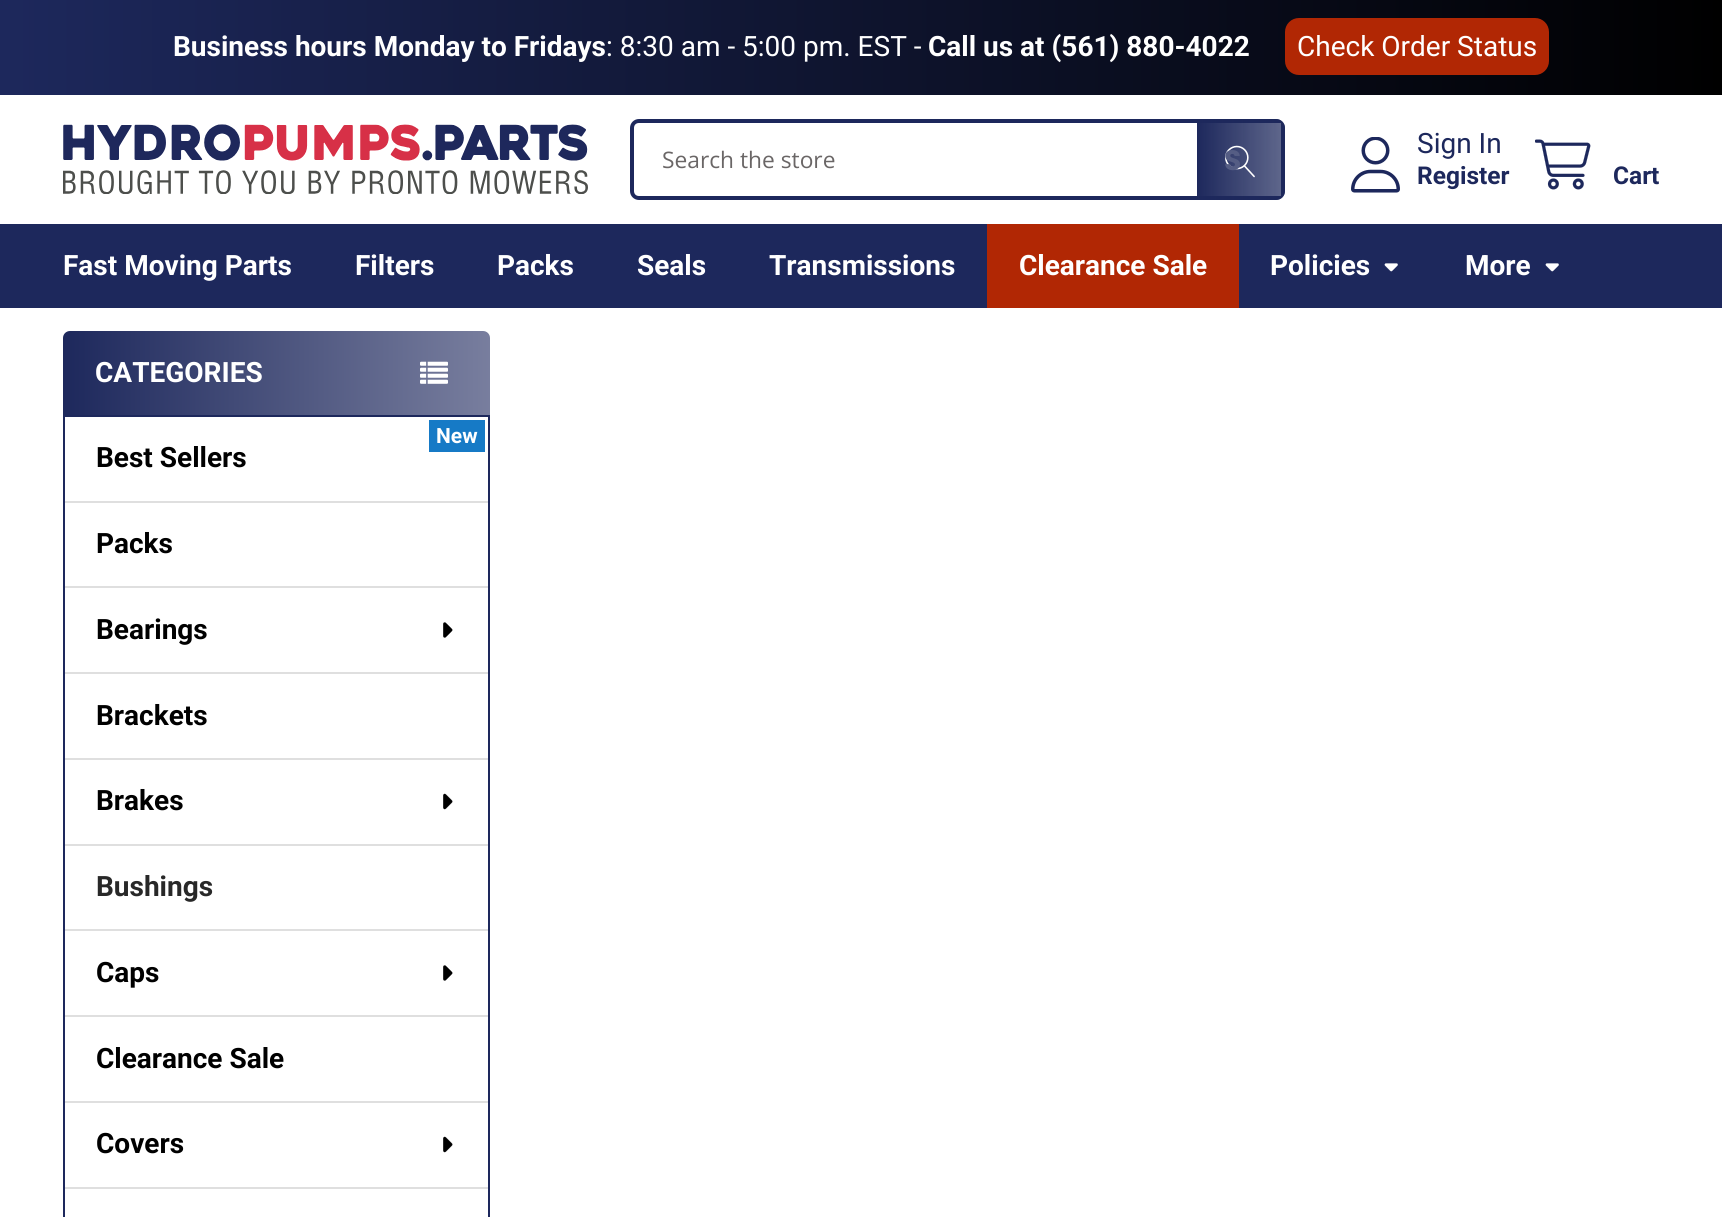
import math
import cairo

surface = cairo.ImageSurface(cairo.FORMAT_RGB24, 1722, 1217)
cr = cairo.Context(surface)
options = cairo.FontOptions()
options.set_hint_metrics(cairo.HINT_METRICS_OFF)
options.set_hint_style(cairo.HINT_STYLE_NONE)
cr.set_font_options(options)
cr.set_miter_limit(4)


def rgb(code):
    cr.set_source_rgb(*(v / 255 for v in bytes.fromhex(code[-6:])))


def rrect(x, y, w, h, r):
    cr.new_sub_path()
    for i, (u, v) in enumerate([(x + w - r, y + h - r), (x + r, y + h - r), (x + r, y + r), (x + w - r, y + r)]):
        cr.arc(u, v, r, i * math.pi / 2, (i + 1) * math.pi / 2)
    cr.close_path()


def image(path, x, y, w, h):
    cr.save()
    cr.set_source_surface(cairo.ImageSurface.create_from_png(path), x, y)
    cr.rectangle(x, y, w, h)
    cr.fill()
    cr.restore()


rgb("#ffffff")
cr.paint()
gradient = cairo.LinearGradient(0, 47, 1722, 47)
gradient.add_color_stop_rgba(0, 0.114, 0.157, 0.361, 1)
gradient.add_color_stop_rgba(1, 0, 0, 0, 1)
cr.set_source(gradient)
cr.rectangle(0, 0, 1722, 95)
cr.fill()
rgb("#b12704")
rrect(1285, 18, 264, 57, 14)
cr.fill()
image("img/1.png", 63, 124, 525, 70)
rgb("#1d285c")
cr.set_fill_rule(cairo.FILL_RULE_EVEN_ODD)
cr.new_path()
cr.move_to(639, 119)
cr.curve_to(634, 119, 630, 123, 630, 128)
cr.line_to(630, 191)
cr.curve_to(630, 196, 634, 200, 639, 200)
cr.line_to(1276, 200)
cr.curve_to(1281, 200, 1285, 196, 1285, 191)
cr.line_to(1285, 128)
cr.curve_to(1285, 123, 1281, 119, 1276, 119)
cr.close_path()
cr.move_to(639, 123)
cr.curve_to(636, 123, 634, 125, 634, 128)
cr.line_to(634, 191)
cr.curve_to(634, 194, 636, 196, 639, 196)
cr.line_to(1281, 196)
cr.line_to(1281, 123)
cr.close_path()
cr.fill()
cr.save()
cr.set_fill_rule(cairo.FILL_RULE_WINDING)
rrect(630, 119, 655, 81, 9)
cr.clip()
gradient = cairo.LinearGradient(1197, 161, 1285, 161)
gradient.add_color_stop_rgba(0, 0.114, 0.157, 0.361, 1)
gradient.add_color_stop_rgba(1, 0.114, 0.157, 0.361, 0.7)
cr.set_source(gradient)
cr.new_path()
cr.move_to(1197, 119)
cr.line_to(1278, 119)
cr.curve_to(1282, 119, 1285, 122, 1285, 126)
cr.line_to(1285, 196)
cr.curve_to(1285, 200, 1282, 203, 1278, 203)
cr.line_to(1197, 203)
cr.close_path()
cr.fill()
cr.restore()
image("img/2.png", 1225, 145, 30, 33)
image("img/3.png", 1351, 137, 49, 56)
image("img/4.png", 1535, 139, 56, 51)
cr.rectangle(0, 224, 1722, 84)
cr.fill()
rgb("#b12704")
cr.rectangle(987, 224, 252, 84)
cr.fill()
image("img/5.png", 1384, 263, 14, 9)
image("img/5.png", 1545, 263, 14, 9)
gradient = cairo.LinearGradient(63, 862, 490, 862)
gradient.add_color_stop_rgba(0, 0.114, 0.157, 0.361, 1)
gradient.add_color_stop_rgba(1, 0.471, 0.494, 0.62, 1)
cr.set_source(gradient)
rrect(63, 331, 427, 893, 7)
cr.fill()
image("img/6.png", 420, 361, 28, 23)
rgb("#ffffff")
cr.rectangle(64, 416, 425, 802)
cr.fill_preserve()
rgb("#1d285c")
cr.stroke()
for x, y, w, h, color in [
    (429, 420, 56, 32, "#167ac6"),
    (65, 501, 423, 2, "#dfdfdf"),
    (65, 586, 423, 2, "#dfdfdf"),
]:
    rgb(color)
    cr.rectangle(x, y, w, h)
    cr.fill()
image("img/7.png", 443, 622, 10, 16)
cr.rectangle(65, 672, 423, 2)
cr.fill()
cr.rectangle(65, 758, 423, 2)
cr.fill()
image("img/8.png", 443, 793, 10, 17)
cr.rectangle(65, 844, 423, 2)
cr.fill()
cr.rectangle(65, 929, 423, 2)
cr.fill()
image("img/7.png", 443, 965, 10, 16)
cr.rectangle(65, 1015, 423, 2)
cr.fill()
cr.rectangle(65, 1101, 423, 2)
cr.fill()
image("img/8.png", 443, 1136, 10, 17)
cr.rectangle(65, 1187, 423, 2)
cr.fill()
cr.select_font_face("Roboto", cairo.FONT_SLANT_NORMAL, cairo.FONT_WEIGHT_BOLD)
cr.set_font_size(28)
rgb("#ffffff")
cr.move_to(173, 56)
cr.show_text("Business hours Monday to Fridays")
cr.select_font_face("Roboto")
cr.move_to(606, 56)
cr.show_text(": 8:30 am - 5:00 pm. EST -")
cr.select_font_face("Roboto", cairo.FONT_SLANT_NORMAL, cairo.FONT_WEIGHT_BOLD)
cr.move_to(928, 56)
cr.show_text("Call us at (561) 880-4022")
cr.select_font_face("Roboto")
cr.move_to(1297, 56)
cr.show_text("Check Order Status")
cr.select_font_face("Open Sans")
cr.set_font_size(22.75)
rgb("#6a6666")
cr.move_to(662, 168)
cr.show_text("Search the store")
cr.select_font_face("Poppins", cairo.FONT_SLANT_NORMAL, cairo.FONT_WEIGHT_BOLD)
cr.set_font_size(28)
rgb("#555d84")
cr.move_to(1224, 170)
cr.show_text("S")
cr.select_font_face("Roboto")
rgb("#1d285c")
cr.move_to(1417, 153)
cr.show_text("Sign In")
cr.select_font_face("Roboto", cairo.FONT_SLANT_NORMAL, cairo.FONT_WEIGHT_BOLD)
cr.set_font_size(24.5)
cr.move_to(1417, 184)
cr.show_text("Register")
cr.move_to(1613, 184)
cr.show_text("Cart")
cr.set_font_size(28)
rgb("#ffffff")
for x, y, s in [
    (63, 275, "Fast Moving Parts"),
    (355, 275, "Filters"),
    (497, 275, "Packs"),
    (637, 275, "Seals"),
    (769, 275, "Transmissions"),
    (1019, 275, "Clearance Sale"),
    (1270, 275, "Policies"),
    (1465, 275, "More"),
    (95, 382, "CATEGORIES"),
]:
    cr.move_to(x, y)
    cr.show_text(s)
cr.set_font_size(21)
cr.move_to(436, 443)
cr.show_text("New")
cr.set_font_size(28)
rgb("#000000")
for x, y, s in [
    (96, 467, "Best Sellers"),
    (96, 553, "Packs"),
    (96, 639, "Bearings"),
    (96, 725, "Brackets"),
    (96, 810, "Brakes"),
]:
    cr.move_to(x, y)
    cr.show_text(s)
rgb("#282828")
cr.move_to(96, 896)
cr.show_text("Bushings")
rgb("#000000")
for x, y, s in [
    (96, 982, "Caps"),
    (96, 1068, "Clearance Sale"),
    (96, 1153, "Covers"),
]:
    cr.move_to(x, y)
    cr.show_text(s)
surface.write_to_png("page.png")
